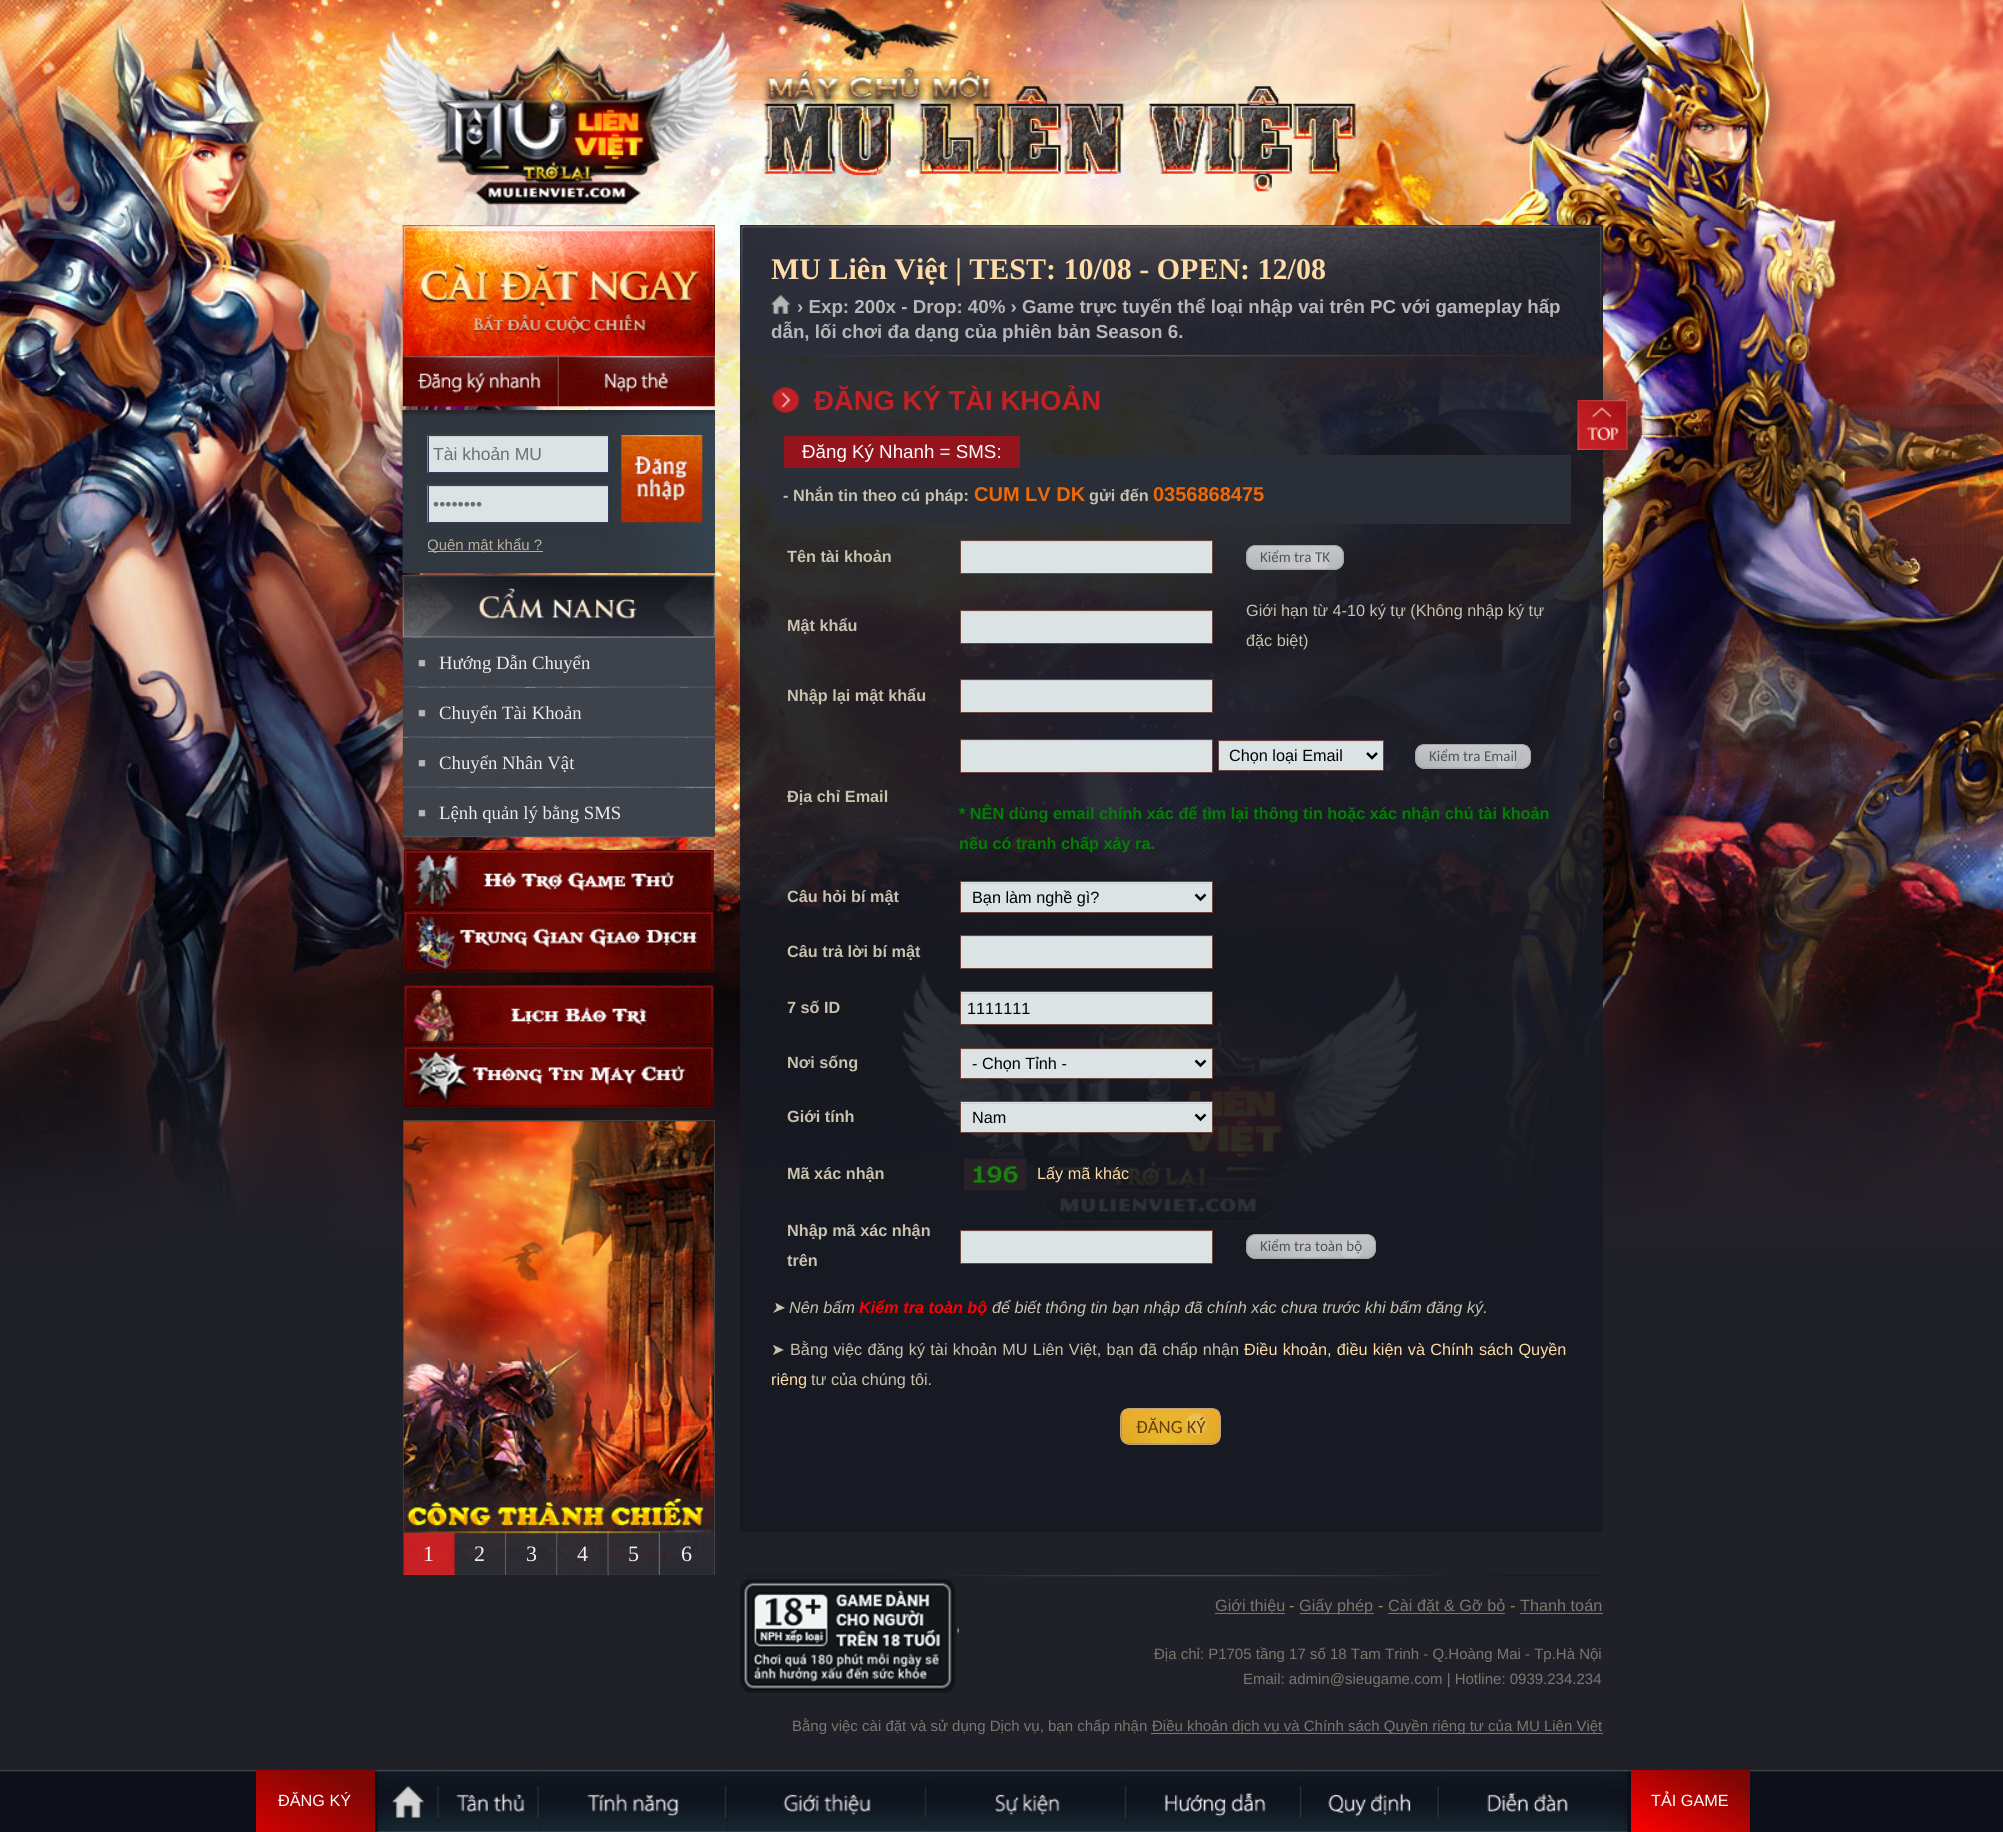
import math
import cairo

surface = cairo.ImageSurface(cairo.FORMAT_RGB24, 2003, 1832)
cr = cairo.Context(surface)
options = cairo.FontOptions()
options.set_hint_metrics(cairo.HINT_METRICS_OFF)
options.set_hint_style(cairo.HINT_STYLE_NONE)
cr.set_font_options(options)
cr.set_miter_limit(4)


def rgb(code):
    cr.set_source_rgb(*(v / 255 for v in bytes.fromhex(code[-6:])))


def tracked(x, y, s, letter, word):
    cr.move_to(x, y)
    for ch in s:
        cr.show_text(ch)
        cr.rel_move_to(letter + word * (ch == ' '), 0)


def rrect(x, y, w, h, r):
    cr.new_sub_path()
    for i, (u, v) in enumerate([(x + w - r, y + h - r), (x + r, y + h - r), (x + r, y + r), (x + w - r, y + r)]):
        cr.arc(u, v, r, i * math.pi / 2, (i + 1) * math.pi / 2)
    cr.close_path()


def image(path, x, y, w, h):
    cr.save()
    cr.set_source_surface(cairo.ImageSurface.create_from_png(path), x, y)
    cr.rectangle(x, y, w, h)
    cr.fill()
    cr.restore()


rgb("#202028")
cr.paint()
image("img/1.png", 0, 0, 2003, 1249)
cr.set_source_rgba(0.094, 0.102, 0.137, 0.9)
cr.rectangle(740, 225, 863, 1307)
cr.fill()
image("img/2.png", 740, 225, 863, 132)
image("img/3.png", 771, 294, 20, 20)
image("img/4.png", 772, 387, 27, 26)
for x, y, w, h, color in [
    (771, 455, 800, 69, "#2a2e36"),
    (784, 436, 236, 32, "#93141c"),
    (961, 541, 251, 32, "#dce3e4"),
    (961, 541, 250, 1, "#ccd2d3"),
]:
    rgb(color)
    cr.rectangle(x, y, w, h)
    cr.fill()
cr.rectangle(960.5, 540.5, 252, 33)
rgb("#6c453f")
cr.set_line_width(1)
cr.stroke()
rgb("#a9adb1")
rrect(1246, 545, 98, 25, 10)
cr.fill()
image("img/5.png", 1247, 546, 96, 23)
rrect(1246.5, 545.5, 97, 24, 9.5)
rgb("#a5a5a5")
cr.stroke()
rgb("#dce3e4")
cr.rectangle(961, 611, 251, 32)
cr.fill()
rgb("#ccd2d3")
cr.rectangle(961, 611, 250, 1)
cr.fill()
cr.rectangle(960.5, 610.5, 252, 33)
rgb("#6c453f")
cr.stroke()
rgb("#dce3e4")
cr.rectangle(961, 680, 251, 32)
cr.fill()
rgb("#ccd2d3")
cr.rectangle(961, 680, 250, 1)
cr.fill()
cr.rectangle(960.5, 679.5, 252, 33)
rgb("#6c453f")
cr.stroke()
rgb("#dce3e4")
cr.rectangle(961, 740, 251, 32)
cr.fill()
rgb("#ccd2d3")
cr.rectangle(961, 740, 250, 1)
cr.fill()
cr.rectangle(960.5, 739.5, 252, 33)
rgb("#6c453f")
cr.stroke()
rgb("#dce3e4")
cr.rectangle(1219, 742, 164, 28)
cr.fill()
rgb("#ccd2d3")
cr.rectangle(1219, 741, 164, 1)
cr.fill()
cr.rectangle(1218.5, 740.5, 165, 30)
rgb("#6c453f")
cr.stroke()
cr.new_path()
cr.move_to(1367, 753)
cr.line_to(1372, 758)
cr.line_to(1377, 753)
rgb("#000000")
cr.set_line_width(2.5)
cr.stroke()
rgb("#a9adb1")
rrect(1415, 744, 116, 25, 10)
cr.fill()
image("img/6.png", 1416, 745, 115, 24)
rrect(1415.5, 744.5, 115, 24, 9.5)
rgb("#a5a5a5")
cr.set_line_width(1)
cr.stroke()
rgb("#dce3e4")
cr.rectangle(961, 882, 251, 30)
cr.fill()
rgb("#ccd2d3")
cr.rectangle(961, 883, 250, 1)
cr.fill()
cr.rectangle(960.5, 881.5, 252, 31)
rgb("#6c453f")
cr.stroke()
cr.new_path()
cr.move_to(1195.5, 894.5)
cr.line_to(1200.5, 899.5)
cr.line_to(1205.5, 894.5)
rgb("#000000")
cr.set_line_width(2.5)
cr.stroke()
rgb("#dce3e4")
cr.rectangle(961, 936, 251, 32)
cr.fill()
rgb("#ccd2d3")
cr.rectangle(961, 936, 250, 1)
cr.fill()
cr.rectangle(960.5, 935.5, 252, 33)
rgb("#6c453f")
cr.set_line_width(1)
cr.stroke()
rgb("#dce3e4")
cr.rectangle(961, 992, 251, 32)
cr.fill()
rgb("#ccd2d3")
cr.rectangle(961, 993, 250, 1)
cr.fill()
cr.rectangle(960.5, 991.5, 252, 33)
rgb("#6c453f")
cr.stroke()
rgb("#dce3e4")
cr.rectangle(961, 1049, 251, 29)
cr.fill()
rgb("#ccd2d3")
cr.rectangle(961, 1049, 250, 1)
cr.fill()
cr.rectangle(960.5, 1048.5, 252, 30)
rgb("#6c453f")
cr.stroke()
cr.new_path()
cr.move_to(1195.5, 1060.5)
cr.line_to(1200.5, 1065.5)
cr.line_to(1205.5, 1060.5)
rgb("#000000")
cr.set_line_width(2.5)
cr.stroke()
rgb("#dce3e4")
cr.rectangle(961, 1102, 251, 30)
cr.fill()
rgb("#ccd2d3")
cr.rectangle(961, 1103, 250, 1)
cr.fill()
cr.rectangle(960.5, 1101.5, 252, 31)
rgb("#6c453f")
cr.set_line_width(1)
cr.stroke()
cr.new_path()
cr.move_to(1195.5, 1114.5)
cr.line_to(1200.5, 1119.5)
cr.line_to(1205.5, 1114.5)
rgb("#000000")
cr.set_line_width(2.5)
cr.stroke()
image("img/7.png", 964, 1158, 63, 32)
rgb("#dce3e4")
cr.rectangle(961, 1231, 251, 32)
cr.fill()
rgb("#ccd2d3")
cr.rectangle(961, 1231, 250, 1)
cr.fill()
cr.rectangle(960.5, 1230.5, 252, 33)
rgb("#6c453f")
cr.set_line_width(1)
cr.stroke()
rgb("#a9adb1")
rrect(1246, 1234, 130, 25, 10)
cr.fill()
image("img/8.png", 1247, 1235, 129, 23)
rrect(1246.5, 1234.5, 129, 24, 9.5)
rgb("#a5a5a5")
cr.stroke()
image("img/9.png", 1121, 1408, 99, 36)
rrect(1120.5, 1408.5, 100, 36, 9.5)
rgb("#bea280")
cr.stroke()
image("img/10.png", 1577, 400, 51, 50)
image("img/11.png", 402, 225, 313, 132)
image("img/12.png", 402, 356, 157, 51)
image("img/13.png", 558, 356, 157, 51)
rgb("#30373f")
cr.rectangle(403, 572, 312, 1)
cr.fill()
image("img/14.png", 402, 410, 313, 163)
rgb("#dce3e4")
cr.rectangle(429, 437, 179, 35)
cr.fill()
rgb("#ccd2d3")
cr.rectangle(429, 436, 179, 1)
cr.fill()
cr.rectangle(428.5, 435.5, 180, 37)
rgb("#2f3c5e")
cr.stroke()
rgb("#dce3e4")
cr.rectangle(429, 487, 179, 35)
cr.fill()
rgb("#ccd2d3")
cr.rectangle(429, 486, 179, 1)
cr.fill()
cr.rectangle(428.5, 485.5, 180, 37)
rgb("#2f3c5e")
cr.stroke()
image("img/15.png", 621, 435, 82, 88)
rgb("#baaf9a")
cr.rectangle(428, 551, 115, 1)
cr.fill()
image("img/16.png", 402, 575, 313, 63)
image("img/17.png", 402, 637, 313, 51)
image("img/18.png", 402, 687, 313, 51)
image("img/19.png", 402, 737, 313, 51)
image("img/20.png", 402, 787, 313, 51)
image("img/21.png", 403, 850, 311, 62)
image("img/22.png", 403, 911, 311, 62)
image("img/23.png", 404, 985, 310, 62)
image("img/24.png", 404, 1046, 310, 62)
cr.rectangle(403.5, 1120.5, 311, 454)
rgb("#424242")
cr.stroke()
image("img/25.png", 403, 1121, 311, 453)
image("img/26.png", 403, 1532, 52, 43)
image("img/27.png", 455, 1532, 52, 43)
image("img/28.png", 506, 1532, 52, 43)
image("img/29.png", 557, 1532, 52, 43)
image("img/30.png", 608, 1532, 52, 43)
cr.set_source_rgba(0.165, 0.18, 0.212, 0.8)
cr.rectangle(660, 1532, 54, 43)
cr.fill()
image("img/31.png", 740, 1575, 861, 118)
for x, y, w, h, color in [
    (1215, 1613, 70, 1, "#7a776f"),
    (1300, 1613, 74, 1, "#7a776f"),
    (1388, 1613, 117, 1, "#7a776f"),
    (1520, 1613, 83, 1, "#7a776f"),
    (1151, 1733, 452, 1, "#7a776f"),
]:
    rgb(color)
    cr.rectangle(x, y, w, h)
    cr.fill()
image("img/32.png", 0, 1770, 2003, 62)
gradient = cairo.LinearGradient(277, 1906, 355, 1759)
gradient.add_color_stop_rgba(0.01, 1, 0, 0, 1)
gradient.add_color_stop_rgba(0.87, 0.494, 0.024, 0.016, 1)
cr.set_source(gradient)
cr.rectangle(256, 1770, 119, 62)
cr.fill()
image("img/33.png", 377, 1770, 64, 62)
image("img/34.png", 439, 1770, 102, 62)
image("img/35.png", 539, 1770, 189, 62)
image("img/36.png", 727, 1770, 201, 62)
image("img/37.png", 927, 1770, 201, 62)
image("img/38.png", 1127, 1770, 176, 62)
image("img/39.png", 1302, 1770, 138, 62)
image("img/40.png", 1440, 1770, 188, 62)
gradient = cairo.LinearGradient(1665, 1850, 1717, 1752)
gradient.add_color_stop_rgba(0.01, 1, 0, 0, 1)
gradient.add_color_stop_rgba(0.87, 0.494, 0.024, 0.016, 1)
cr.set_source(gradient)
cr.rectangle(1631, 1770, 119, 62)
cr.fill()
cr.select_font_face("Liberation Serif", cairo.FONT_SLANT_NORMAL, cairo.FONT_WEIGHT_BOLD)
cr.set_font_size(30)
rgb("#ffdca5")
cr.move_to(771, 279)
cr.show_text("MU Liên Việt | TEST: 10/08 - OPEN: 12/08")
cr.select_font_face("Liberation Sans", cairo.FONT_SLANT_NORMAL, cairo.FONT_WEIGHT_BOLD)
cr.set_font_size(18.75)
rgb("#b7b7b7")
cr.move_to(797, 313)
cr.show_text("› Exp: 200x - Drop: 40% › Game trực tuyến thể loại nhập vai trên PC với gameplay hấp")
cr.move_to(771, 338)
cr.show_text("dẫn, lối chơi đa dạng của phiên bản Season 6.")
cr.set_font_size(27.5)
rgb("#c32026")
cr.move_to(814, 410)
cr.show_text("ĐĂNG KÝ TÀI KHOẢN")
cr.select_font_face("Liberation Sans")
cr.set_font_size(18.75)
rgb("#ffffff")
cr.move_to(802, 458)
cr.show_text("Đăng Ký Nhanh = SMS:")
cr.select_font_face("Liberation Sans", cairo.FONT_SLANT_NORMAL, cairo.FONT_WEIGHT_BOLD)
cr.set_font_size(16.25)
rgb("#c8c2ae")
cr.move_to(783, 501)
cr.show_text("- Nhắn tin theo cú pháp:")
cr.set_font_size(20)
rgb("#ef6908")
cr.move_to(974, 501)
cr.show_text("CUM LV DK")
cr.set_font_size(16.25)
rgb("#c8c2ae")
cr.move_to(1089, 501)
cr.show_text("gửi đến")
cr.set_font_size(20)
rgb("#ef6908")
cr.move_to(1153, 501)
cr.show_text("0356868475")
cr.set_font_size(16.25)
rgb("#c8c2ae")
cr.move_to(787, 562)
cr.show_text("Tên tài khoản")
cr.select_font_face("Carlito")
cr.set_font_size(15)
rgb("#525252")
cr.move_to(1260, 562)
cr.show_text("Kiểm tra TK")
cr.select_font_face("Liberation Sans", cairo.FONT_SLANT_NORMAL, cairo.FONT_WEIGHT_BOLD)
cr.set_font_size(16.25)
rgb("#c8c2ae")
cr.move_to(787, 631)
cr.show_text("Mật khẩu")
cr.select_font_face("Liberation Sans")
cr.move_to(1246, 616)
cr.show_text("Giới hạn từ 4-10 ký tự (Không nhập ký tự")
cr.move_to(1246, 646)
cr.show_text("đặc biệt)")
cr.select_font_face("Liberation Sans", cairo.FONT_SLANT_NORMAL, cairo.FONT_WEIGHT_BOLD)
cr.move_to(787, 701)
cr.show_text("Nhập lại mật khẩu")
cr.select_font_face("Liberation Sans")
rgb("#000000")
cr.move_to(1229, 761)
cr.show_text("Chọn loại Email")
cr.select_font_face("Carlito")
cr.set_font_size(15)
rgb("#525252")
cr.move_to(1429, 761)
cr.show_text("Kiểm tra Email")
cr.select_font_face("Liberation Sans", cairo.FONT_SLANT_NORMAL, cairo.FONT_WEIGHT_BOLD)
cr.set_font_size(16.25)
rgb("#c8c2ae")
cr.move_to(787, 802)
cr.show_text("Địa chỉ Email")
rgb("#008000")
cr.move_to(959, 819)
cr.show_text("* NÊN dùng email chính xác để tìm lại thông tin hoặc xác nhận chủ tài khoản")
cr.move_to(959, 849)
cr.show_text("nếu có tranh chấp xảy ra.")
rgb("#c8c2ae")
cr.move_to(787, 902)
cr.show_text("Câu hỏi bí mật")
cr.select_font_face("Liberation Sans")
rgb("#000000")
cr.move_to(972, 903)
cr.show_text("Bạn làm nghề gì?")
cr.select_font_face("Liberation Sans", cairo.FONT_SLANT_NORMAL, cairo.FONT_WEIGHT_BOLD)
rgb("#c8c2ae")
cr.move_to(787, 957)
cr.show_text("Câu trả lời bí mật")
cr.move_to(787, 1013)
cr.show_text("7 số ID")
cr.select_font_face("Liberation Sans")
rgb("#000000")
cr.move_to(967, 1014)
cr.show_text("1111111")
cr.select_font_face("Liberation Sans", cairo.FONT_SLANT_NORMAL, cairo.FONT_WEIGHT_BOLD)
rgb("#c8c2ae")
cr.move_to(787, 1068)
cr.show_text("Nơi sống")
cr.select_font_face("Liberation Sans")
rgb("#000000")
cr.move_to(972, 1069)
cr.show_text("- Chọn Tỉnh -")
cr.select_font_face("Liberation Sans", cairo.FONT_SLANT_NORMAL, cairo.FONT_WEIGHT_BOLD)
rgb("#c8c2ae")
cr.move_to(787, 1122)
cr.show_text("Giới tính")
cr.select_font_face("Liberation Sans")
rgb("#000000")
cr.move_to(972, 1123)
cr.show_text("Nam")
cr.select_font_face("Liberation Sans", cairo.FONT_SLANT_NORMAL, cairo.FONT_WEIGHT_BOLD)
rgb("#c8c2ae")
cr.move_to(787, 1179)
cr.show_text("Mã xác nhận")
cr.select_font_face("Liberation Sans")
rgb("#ffdca5")
cr.move_to(1037, 1179)
cr.show_text("Lấy mã khác")
cr.select_font_face("Liberation Sans", cairo.FONT_SLANT_NORMAL, cairo.FONT_WEIGHT_BOLD)
rgb("#c8c2ae")
cr.move_to(787, 1236)
cr.show_text("Nhập mã xác nhận")
cr.move_to(787, 1266)
cr.show_text("trên")
cr.select_font_face("Carlito")
cr.set_font_size(15)
rgb("#525252")
cr.move_to(1260, 1251)
cr.show_text("Kiểm tra toàn bộ")
cr.select_font_face("DejaVu Sans", cairo.FONT_SLANT_ITALIC)
cr.set_font_size(16.25)
rgb("#c8c2ae")
cr.move_to(771, 1313)
cr.show_text("➤")
cr.select_font_face("Liberation Sans", cairo.FONT_SLANT_ITALIC)
cr.move_to(789, 1313)
cr.show_text("Nên bấm")
cr.select_font_face("Liberation Sans", cairo.FONT_SLANT_ITALIC, cairo.FONT_WEIGHT_BOLD)
rgb("#ff0000")
cr.move_to(859, 1313)
cr.show_text("Kiểm tra toàn bộ")
cr.select_font_face("Liberation Sans", cairo.FONT_SLANT_ITALIC)
rgb("#c8c2ae")
cr.move_to(992, 1313)
cr.show_text("để biết thông tin bạn nhập đã chính xác chưa trước khi bấm đăng ký.")
cr.select_font_face("DejaVu Sans")
cr.move_to(771, 1355)
cr.show_text("➤")
cr.select_font_face("Liberation Sans")
tracked(790, 1355, "Bằng việc đăng ký tài khoản MU Liên Việt, bạn đã chấp nhận", 0, 0.75)
rgb("#ffdca5")
tracked(1244, 1355, "Điều khoản, điều kiện và Chính sách Quyền", 0, 0.75)
cr.move_to(771, 1385)
cr.show_text("riêng")
rgb("#c8c2ae")
cr.move_to(811, 1385)
cr.show_text("tư của chúng tôi.")
cr.select_font_face("Carlito")
cr.set_font_size(18.75)
rgb("#693e0a")
cr.move_to(1136, 1433)
cr.show_text("ĐĂNG KÝ")
cr.select_font_face("Liberation Sans")
cr.set_font_size(17.5)
rgb("#657275")
cr.move_to(433, 460)
cr.show_text("Tài khoản MU")
cr.move_to(433, 510)
cr.show_text("••••••••")
cr.save()
cr.rectangle(428, 523, 275, 32)
cr.clip()
cr.set_font_size(15)
rgb("#baaf9a")
cr.move_to(427, 550)
cr.show_text("Quên mật khẩu ?")
cr.restore()
cr.select_font_face("Liberation Serif")
cr.set_font_size(18.75)
rgb("#ececec")
for x, y, s in [
    (439, 669, "Hướng Dẫn Chuyển"),
    (439, 719, "Chuyển Tài Khoản"),
    (439, 769, "Chuyển Nhân Vật"),
    (439, 819, "Lệnh quản lý bằng SMS"),
]:
    cr.move_to(x, y)
    cr.show_text(s)
cr.set_font_size(22)
rgb("#f1f1f2")
for x, y, s in [
    (423, 1561, "1"),
    (474, 1561, "2"),
    (526, 1561, "3"),
    (577, 1561, "4"),
    (628, 1561, "5"),
    (681, 1561, "6"),
]:
    cr.move_to(x, y)
    cr.show_text(s)
cr.select_font_face("Liberation Sans")
cr.set_font_size(16.25)
rgb("#7a776f")
cr.move_to(1215, 1611)
cr.show_text("Giới thiệu")
rgb("#a68c5a")
cr.move_to(1289, 1611)
cr.show_text("-")
rgb("#7a776f")
cr.move_to(1299, 1611)
cr.show_text("Giấy phép")
rgb("#a68c5a")
cr.move_to(1378, 1611)
cr.show_text("-")
rgb("#7a776f")
cr.move_to(1388, 1611)
cr.show_text("Cài đặt & Gỡ bỏ")
rgb("#a68c5a")
cr.move_to(1510, 1611)
cr.show_text("-")
rgb("#7a776f")
cr.move_to(1520, 1611)
cr.show_text("Thanh toán")
cr.set_font_size(15)
for x, y, s in [
    (1154, 1659, "Địa chỉ: P1705 tầng 17 số 18 Tam Trinh - Q.Hoàng Mai - Tp.Hà Nội"),
    (1243, 1684, "Email: admin@sieugame.com | Hotline: 0939.234.234"),
    (792, 1731, "Bằng việc cài đặt và sử dụng Dịch vụ, bạn chấp nhận"),
    (1152, 1731, "Điều khoản dịch vụ và Chính sách Quyền riêng tư của MU Liên Việt"),
]:
    cr.move_to(x, y)
    cr.show_text(s)
cr.set_font_size(16.25)
rgb("#ffffff")
cr.move_to(278, 1806)
cr.show_text("ĐĂNG KÝ")
cr.move_to(1651, 1806)
cr.show_text("TẢI GAME")
surface.write_to_png("page.png")
